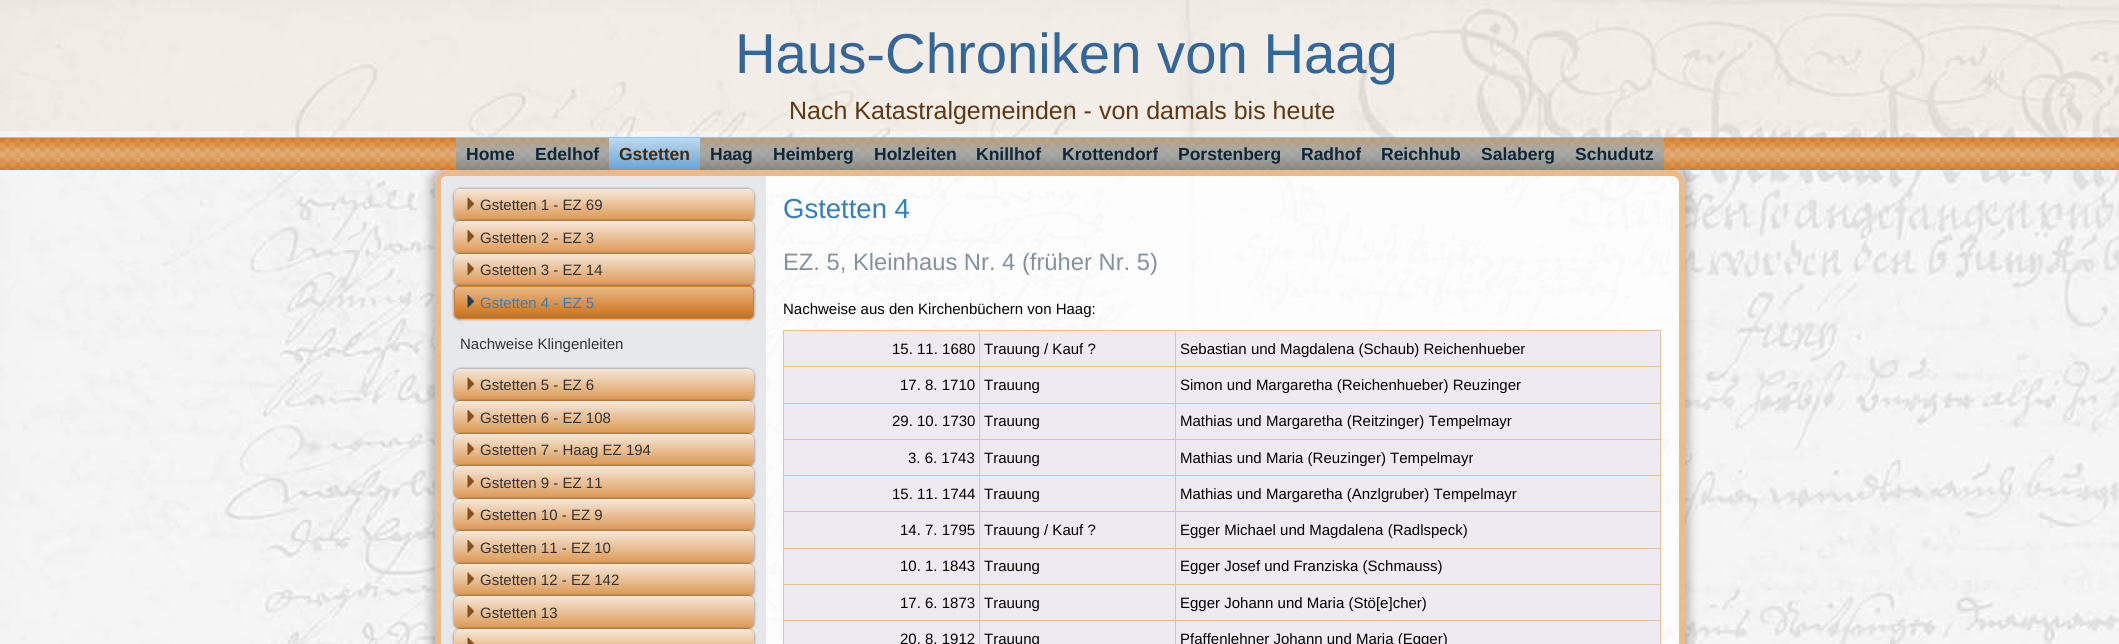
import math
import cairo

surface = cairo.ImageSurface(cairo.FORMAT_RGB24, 2119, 644)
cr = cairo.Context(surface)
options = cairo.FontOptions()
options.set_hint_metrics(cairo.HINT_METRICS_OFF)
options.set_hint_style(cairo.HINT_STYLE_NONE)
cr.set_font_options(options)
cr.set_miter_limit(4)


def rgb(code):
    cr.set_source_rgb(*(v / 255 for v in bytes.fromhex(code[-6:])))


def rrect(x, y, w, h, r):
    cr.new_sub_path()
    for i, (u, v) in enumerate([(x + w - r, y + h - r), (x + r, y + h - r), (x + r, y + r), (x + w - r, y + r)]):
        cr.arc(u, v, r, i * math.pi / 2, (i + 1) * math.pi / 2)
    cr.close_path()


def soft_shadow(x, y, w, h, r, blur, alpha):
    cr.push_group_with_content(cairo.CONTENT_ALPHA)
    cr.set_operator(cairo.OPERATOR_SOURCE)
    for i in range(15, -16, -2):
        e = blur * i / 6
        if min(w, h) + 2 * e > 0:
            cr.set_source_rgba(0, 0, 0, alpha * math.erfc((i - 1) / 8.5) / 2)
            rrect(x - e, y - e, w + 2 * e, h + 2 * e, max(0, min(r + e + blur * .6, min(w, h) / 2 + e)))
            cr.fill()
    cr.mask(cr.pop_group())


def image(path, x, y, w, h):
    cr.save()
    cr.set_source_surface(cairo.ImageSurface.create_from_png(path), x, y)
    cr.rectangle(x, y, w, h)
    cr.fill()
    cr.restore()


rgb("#ffffff")
cr.paint()
image("img/1.png", 0, 0, 2119, 644)
cr.save()
cr.set_fill_rule(cairo.FILL_RULE_EVEN_ODD)
cr.new_path()
cr.move_to(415, 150)
cr.line_to(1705, 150)
cr.line_to(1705, 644)
cr.line_to(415, 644)
cr.close_path()
cr.move_to(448, 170)
cr.line_to(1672, 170)
cr.curve_to(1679, 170, 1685, 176, 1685, 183)
cr.line_to(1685, 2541)
cr.curve_to(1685, 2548, 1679, 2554, 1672, 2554)
cr.line_to(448, 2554)
cr.curve_to(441, 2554, 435, 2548, 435, 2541)
cr.line_to(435, 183)
cr.curve_to(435, 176, 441, 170, 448, 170)
cr.close_path()
cr.clip()
rgb("#000000")
soft_shadow(430, 165, 1260, 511, 18, 4.5, 0.24)
cr.restore()
image("img/2.png", 0, 137, 2119, 33)
gradient = cairo.LinearGradient(654, 138, 654, 170)
gradient.add_color_stop_rgba(0, 0.749, 0.851, 0.933, 1)
gradient.add_color_stop_rgba(1, 0.4, 0.643, 0.839, 1)
cr.set_source(gradient)
cr.rectangle(609, 138, 91, 32)
cr.fill()
cr.set_source_rgba(1, 1, 1, 0.8)
rrect(435, 170, 1250, 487, 13)
cr.fill()
rrect(438, 173, 1244, 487, 10)
cr.set_source_rgba(0.886, 0.671, 0.451, 0.8)
cr.set_line_width(6)
cr.stroke()
rgb("#e6e8eb")
cr.new_path()
cr.move_to(447, 176)
cr.line_to(766, 176)
cr.line_to(766, 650)
cr.line_to(441, 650)
cr.line_to(441, 182)
cr.curve_to(441, 178.5, 443.5, 176, 447, 176)
cr.close_path()
cr.fill()
rgb("#000000")
soft_shadow(453, 188, 302, 35, 8, 1, 0.25)
gradient = cairo.LinearGradient(604, 189, 604, 221)
gradient.add_color_stop_rgba(0, 0.969, 0.91, 0.851, 1)
gradient.add_color_stop_rgba(1, 0.859, 0.588, 0.318, 1)
cr.set_source(gradient)
rrect(454, 189, 300, 32, 6)
cr.fill()
image("img/3.png", 467, 197, 7, 13)
rgb("#000000")
soft_shadow(453, 220, 302, 35, 8, 1, 0.25)
gradient = cairo.LinearGradient(604, 221, 604, 254)
gradient.add_color_stop_rgba(0, 0.969, 0.91, 0.851, 1)
gradient.add_color_stop_rgba(1, 0.859, 0.588, 0.318, 1)
cr.set_source(gradient)
rrect(454, 221, 300, 33, 6)
cr.fill()
image("img/4.png", 467, 230, 7, 13)
rgb("#000000")
soft_shadow(453, 253, 302, 35, 8, 1, 0.25)
gradient = cairo.LinearGradient(604, 254, 604, 286)
gradient.add_color_stop_rgba(0, 0.969, 0.91, 0.851, 1)
gradient.add_color_stop_rgba(1, 0.859, 0.588, 0.318, 1)
cr.set_source(gradient)
rrect(454, 254, 300, 32, 6)
cr.fill()
image("img/3.png", 467, 262, 7, 13)
rgb("#000000")
soft_shadow(453, 285, 302, 35, 6, 1, 0.25)
gradient = cairo.LinearGradient(604, 286, 604, 319)
gradient.add_color_stop_rgba(0, 0.91, 0.729, 0.553, 1)
gradient.add_color_stop_rgba(0.77, 0.831, 0.502, 0.169, 1)
gradient.add_color_stop_rgba(1, 0.714, 0.431, 0.145, 1)
cr.set_source(gradient)
rrect(454.5, 286.5, 299, 32, 4.5)
cr.fill_preserve()
rgb("#d58230")
cr.set_line_width(1)
cr.stroke()
image("img/5.png", 467, 295, 7, 13)
rgb("#000000")
soft_shadow(453, 368, 302, 35, 8, 1, 0.25)
gradient = cairo.LinearGradient(604, 369, 604, 401)
gradient.add_color_stop_rgba(0, 0.969, 0.91, 0.851, 1)
gradient.add_color_stop_rgba(1, 0.859, 0.588, 0.318, 1)
cr.set_source(gradient)
rrect(454, 369, 300, 32, 6)
cr.fill()
image("img/3.png", 467, 377, 7, 13)
rgb("#000000")
soft_shadow(453, 400, 302, 35, 8, 1, 0.25)
gradient = cairo.LinearGradient(604, 401, 604, 434)
gradient.add_color_stop_rgba(0, 0.969, 0.91, 0.851, 1)
gradient.add_color_stop_rgba(1, 0.859, 0.588, 0.318, 1)
cr.set_source(gradient)
rrect(454, 401, 300, 33, 6)
cr.fill()
image("img/4.png", 467, 410, 7, 13)
rgb("#000000")
soft_shadow(453, 433, 302, 35, 8, 1, 0.25)
gradient = cairo.LinearGradient(604, 434, 604, 466)
gradient.add_color_stop_rgba(0, 0.969, 0.91, 0.851, 1)
gradient.add_color_stop_rgba(1, 0.859, 0.588, 0.318, 1)
cr.set_source(gradient)
rrect(454, 434, 300, 32, 6)
cr.fill()
image("img/3.png", 467, 442, 7, 13)
rgb("#000000")
soft_shadow(453, 465, 302, 35, 8, 1, 0.25)
gradient = cairo.LinearGradient(604, 466, 604, 499)
gradient.add_color_stop_rgba(0, 0.969, 0.91, 0.851, 1)
gradient.add_color_stop_rgba(1, 0.859, 0.588, 0.318, 1)
cr.set_source(gradient)
rrect(454, 466, 300, 33, 6)
cr.fill()
image("img/4.png", 467, 475, 7, 13)
rgb("#000000")
soft_shadow(453, 498, 302, 35, 8, 1, 0.25)
gradient = cairo.LinearGradient(604, 499, 604, 531)
gradient.add_color_stop_rgba(0, 0.969, 0.91, 0.851, 1)
gradient.add_color_stop_rgba(1, 0.859, 0.588, 0.318, 1)
cr.set_source(gradient)
rrect(454, 499, 300, 32, 6)
cr.fill()
image("img/3.png", 467, 507, 7, 13)
rgb("#000000")
soft_shadow(453, 530, 302, 35, 8, 1, 0.25)
gradient = cairo.LinearGradient(604, 531, 604, 564)
gradient.add_color_stop_rgba(0, 0.969, 0.91, 0.851, 1)
gradient.add_color_stop_rgba(1, 0.859, 0.588, 0.318, 1)
cr.set_source(gradient)
rrect(454, 531, 300, 33, 6)
cr.fill()
image("img/4.png", 467, 540, 7, 13)
rgb("#000000")
soft_shadow(453, 563, 302, 35, 8, 1, 0.25)
gradient = cairo.LinearGradient(604, 564, 604, 596)
gradient.add_color_stop_rgba(0, 0.969, 0.91, 0.851, 1)
gradient.add_color_stop_rgba(1, 0.859, 0.588, 0.318, 1)
cr.set_source(gradient)
rrect(454, 564, 300, 32, 6)
cr.fill()
image("img/3.png", 467, 572, 7, 13)
rgb("#000000")
soft_shadow(453, 595, 302, 35, 8, 1, 0.25)
gradient = cairo.LinearGradient(604, 596, 604, 629)
gradient.add_color_stop_rgba(0, 0.969, 0.91, 0.851, 1)
gradient.add_color_stop_rgba(1, 0.859, 0.588, 0.318, 1)
cr.set_source(gradient)
rrect(454, 596, 300, 33, 6)
cr.fill()
image("img/4.png", 467, 605, 7, 13)
rgb("#000000")
soft_shadow(453, 628, 302, 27, 8, 1, 0.25)
gradient = cairo.LinearGradient(604, 629, 604, 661)
gradient.add_color_stop_rgba(0, 0.969, 0.91, 0.851, 1)
gradient.add_color_stop_rgba(1, 0.859, 0.588, 0.318, 1)
cr.set_source(gradient)
rrect(454, 629, 300, 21, 6)
cr.fill()
image("img/6.png", 467, 637, 7, 7)
for x, y, w, h, color in [
    (784, 331, 876, 72, "#edebf1"),
    (1175, 330, 486, 1, "#e9bf95"),
    (1175, 366, 486, 1, "#e9bf95"),
    (1175, 403, 486, 1, "#e9bf95"),
    (784, 404, 876, 35, "#edebf1"),
    (1175, 439, 486, 1, "#e9bf95"),
    (784, 440, 876, 35, "#edebf1"),
    (1175, 475, 486, 1, "#e9bf95"),
    (784, 476, 876, 72, "#edebf1"),
    (1175, 511, 486, 1, "#e9bf95"),
    (1175, 548, 486, 1, "#e9bf95"),
    (784, 549, 876, 35, "#edebf1"),
    (1175, 584, 486, 1, "#e9bf95"),
    (784, 585, 876, 35, "#edebf1"),
    (1175, 620, 486, 1, "#e9bf95"),
    (784, 621, 876, 23, "#edebf1"),
    (1175, 620, 1, 24, "#e9bf95"),
    (979, 620, 197, 1, "#e9bf95"),
    (1175, 584, 1, 37, "#e9bf95"),
    (979, 584, 197, 1, "#e9bf95"),
    (1175, 548, 1, 37, "#e9bf95"),
    (979, 548, 197, 1, "#e9bf95"),
    (1175, 511, 1, 38, "#e9bf95"),
    (979, 511, 197, 1, "#e9bf95"),
    (1175, 475, 1, 38, "#e9bf95"),
    (979, 475, 197, 1, "#e9bf95"),
    (1175, 439, 1, 37, "#e9bf95"),
    (979, 439, 197, 1, "#e9bf95"),
    (1175, 403, 1, 37, "#e9bf95"),
    (979, 403, 197, 1, "#e9bf95"),
    (1175, 366, 1, 38, "#e9bf95"),
    (979, 366, 197, 1, "#e9bf95"),
    (1175, 330, 1, 38, "#e9bf95"),
    (979, 330, 197, 1, "#e9bf95"),
    (979, 620, 1, 24, "#e9bf95"),
    (783, 620, 197, 1, "#e9bf95"),
    (979, 584, 1, 37, "#e9bf95"),
    (783, 584, 197, 1, "#e9bf95"),
    (979, 548, 1, 37, "#e9bf95"),
    (783, 548, 197, 1, "#e9bf95"),
    (979, 511, 1, 38, "#e9bf95"),
    (783, 511, 197, 1, "#e9bf95"),
    (979, 475, 1, 38, "#e9bf95"),
    (783, 475, 197, 1, "#e9bf95"),
    (979, 439, 1, 37, "#e9bf95"),
    (783, 439, 197, 1, "#e9bf95"),
    (979, 403, 1, 37, "#e9bf95"),
    (783, 403, 197, 1, "#e9bf95"),
    (979, 366, 1, 38, "#e9bf95"),
    (783, 366, 197, 1, "#e9bf95"),
    (979, 330, 1, 38, "#e9bf95"),
    (783, 330, 197, 1, "#e9bf95"),
    (783, 620, 1, 24, "#e9bf95"),
    (783, 584, 1, 37, "#e9bf95"),
    (783, 548, 1, 37, "#e9bf95"),
    (783, 511, 1, 38, "#e9bf95"),
    (783, 475, 1, 38, "#e9bf95"),
    (783, 439, 1, 37, "#e9bf95"),
    (783, 403, 1, 37, "#e9bf95"),
    (783, 366, 1, 38, "#e9bf95"),
    (783, 330, 1, 38, "#e9bf95"),
    (1660, 620, 1, 24, "#e9bf95"),
    (1660, 584, 1, 37, "#e9bf95"),
    (1660, 548, 1, 37, "#e9bf95"),
    (1660, 511, 1, 38, "#e9bf95"),
    (1660, 475, 1, 38, "#e9bf95"),
    (1660, 439, 1, 37, "#e9bf95"),
    (1660, 403, 1, 37, "#e9bf95"),
    (1660, 366, 1, 38, "#e9bf95"),
    (1660, 330, 1, 38, "#e9bf95"),
]:
    rgb(color)
    cr.rectangle(x, y, w, h)
    cr.fill()
cr.select_font_face("Liberation Sans")
cr.set_font_size(56.25)
rgb("#336699")
cr.move_to(735, 73)
cr.show_text("Haus-Chroniken von Haag")
cr.set_font_size(25)
rgb("#5d3813")
cr.move_to(789, 119)
cr.show_text("Nach Katastralgemeinden - von damals bis heute")
cr.select_font_face("Liberation Sans", cairo.FONT_SLANT_NORMAL, cairo.FONT_WEIGHT_BOLD)
cr.set_font_size(17.5)
rgb("#0f2638")
cr.move_to(466, 160)
cr.show_text("Home")
cr.move_to(535, 160)
cr.show_text("Edelhof")
rgb("#44290e")
cr.move_to(619, 160)
cr.show_text("Gstetten")
rgb("#0f2638")
for x, y, s in [
    (710, 160, "Haag"),
    (773, 160, "Heimberg"),
    (874, 160, "Holzleiten"),
    (976, 160, "Knillhof"),
    (1062, 160, "Krottendorf"),
    (1178, 160, "Porstenberg"),
    (1301, 160, "Radhof"),
    (1381, 160, "Reichhub"),
    (1481, 160, "Salaberg"),
    (1575, 160, "Schudutz"),
]:
    cr.move_to(x, y)
    cr.show_text(s)
cr.select_font_face("Liberation Sans")
cr.set_font_size(15)
rgb("#333333")
for x, y, s in [
    (480, 210, "Gstetten 1 - EZ 69"),
    (480, 243, "Gstetten 2 - EZ 3"),
    (480, 275, "Gstetten 3 - EZ 14"),
]:
    cr.move_to(x, y)
    cr.show_text(s)
rgb("#327fbd")
cr.move_to(480, 308)
cr.show_text("Gstetten 4 - EZ 5")
rgb("#333333")
for x, y, s in [
    (460, 349, "Nachweise Klingenleiten"),
    (480, 390, "Gstetten 5 - EZ 6"),
    (480, 423, "Gstetten 6 - EZ 108"),
    (480, 455, "Gstetten 7 - Haag EZ 194"),
    (480, 488, "Gstetten 9 - EZ 11"),
    (480, 520, "Gstetten 10 - EZ 9"),
    (480, 553, "Gstetten 11 - EZ 10"),
    (480, 585, "Gstetten 12 - EZ 142"),
    (480, 618, "Gstetten 13"),
]:
    cr.move_to(x, y)
    cr.show_text(s)
cr.set_font_size(27.5)
rgb("#327fbd")
cr.move_to(783, 218)
cr.show_text("Gstetten 4")
cr.set_font_size(23.75)
rgb("#85919d")
cr.move_to(783, 270)
cr.show_text("EZ. 5, Kleinhaus Nr. 4 (früher Nr. 5)")
cr.set_font_size(15)
rgb("#000000")
for x, y, s in [
    (783, 314, "Nachweise aus den Kirchenbüchern von Haag:"),
    (892, 354, "15. 11. 1680"),
    (984, 354, "Trauung / Kauf ?"),
    (1180, 354, "Sebastian und Magdalena (Schaub) Reichenhueber"),
    (900, 390, "17. 8. 1710"),
    (984, 390, "Trauung"),
    (1180, 390, "Simon und Margaretha (Reichenhueber) Reuzinger"),
    (892, 426, "29. 10. 1730"),
    (984, 426, "Trauung"),
    (1180, 426, "Mathias und Margaretha (Reitzinger) Tempelmayr"),
    (908, 463, "3. 6. 1743"),
    (984, 463, "Trauung"),
    (1180, 463, "Mathias und Maria (Reuzinger) Tempelmayr"),
    (892, 499, "15. 11. 1744"),
    (984, 499, "Trauung"),
    (1180, 499, "Mathias und Margaretha (Anzlgruber) Tempelmayr"),
    (900, 535, "14. 7. 1795"),
    (984, 535, "Trauung / Kauf ?"),
    (1180, 535, "Egger Michael und Magdalena (Radlspeck)"),
    (900, 571, "10. 1. 1843"),
    (984, 571, "Trauung"),
    (1180, 571, "Egger Josef und Franziska (Schmauss)"),
    (900, 608, "17. 6. 1873"),
    (984, 608, "Trauung"),
    (1180, 608, "Egger Johann und Maria (Stö[e]cher)"),
    (900, 644, "20. 8. 1912"),
    (984, 644, "Trauung"),
    (1180, 644, "Pfaffenlehner Johann und Maria (Egger)"),
]:
    cr.move_to(x, y)
    cr.show_text(s)
surface.write_to_png("page.png")
